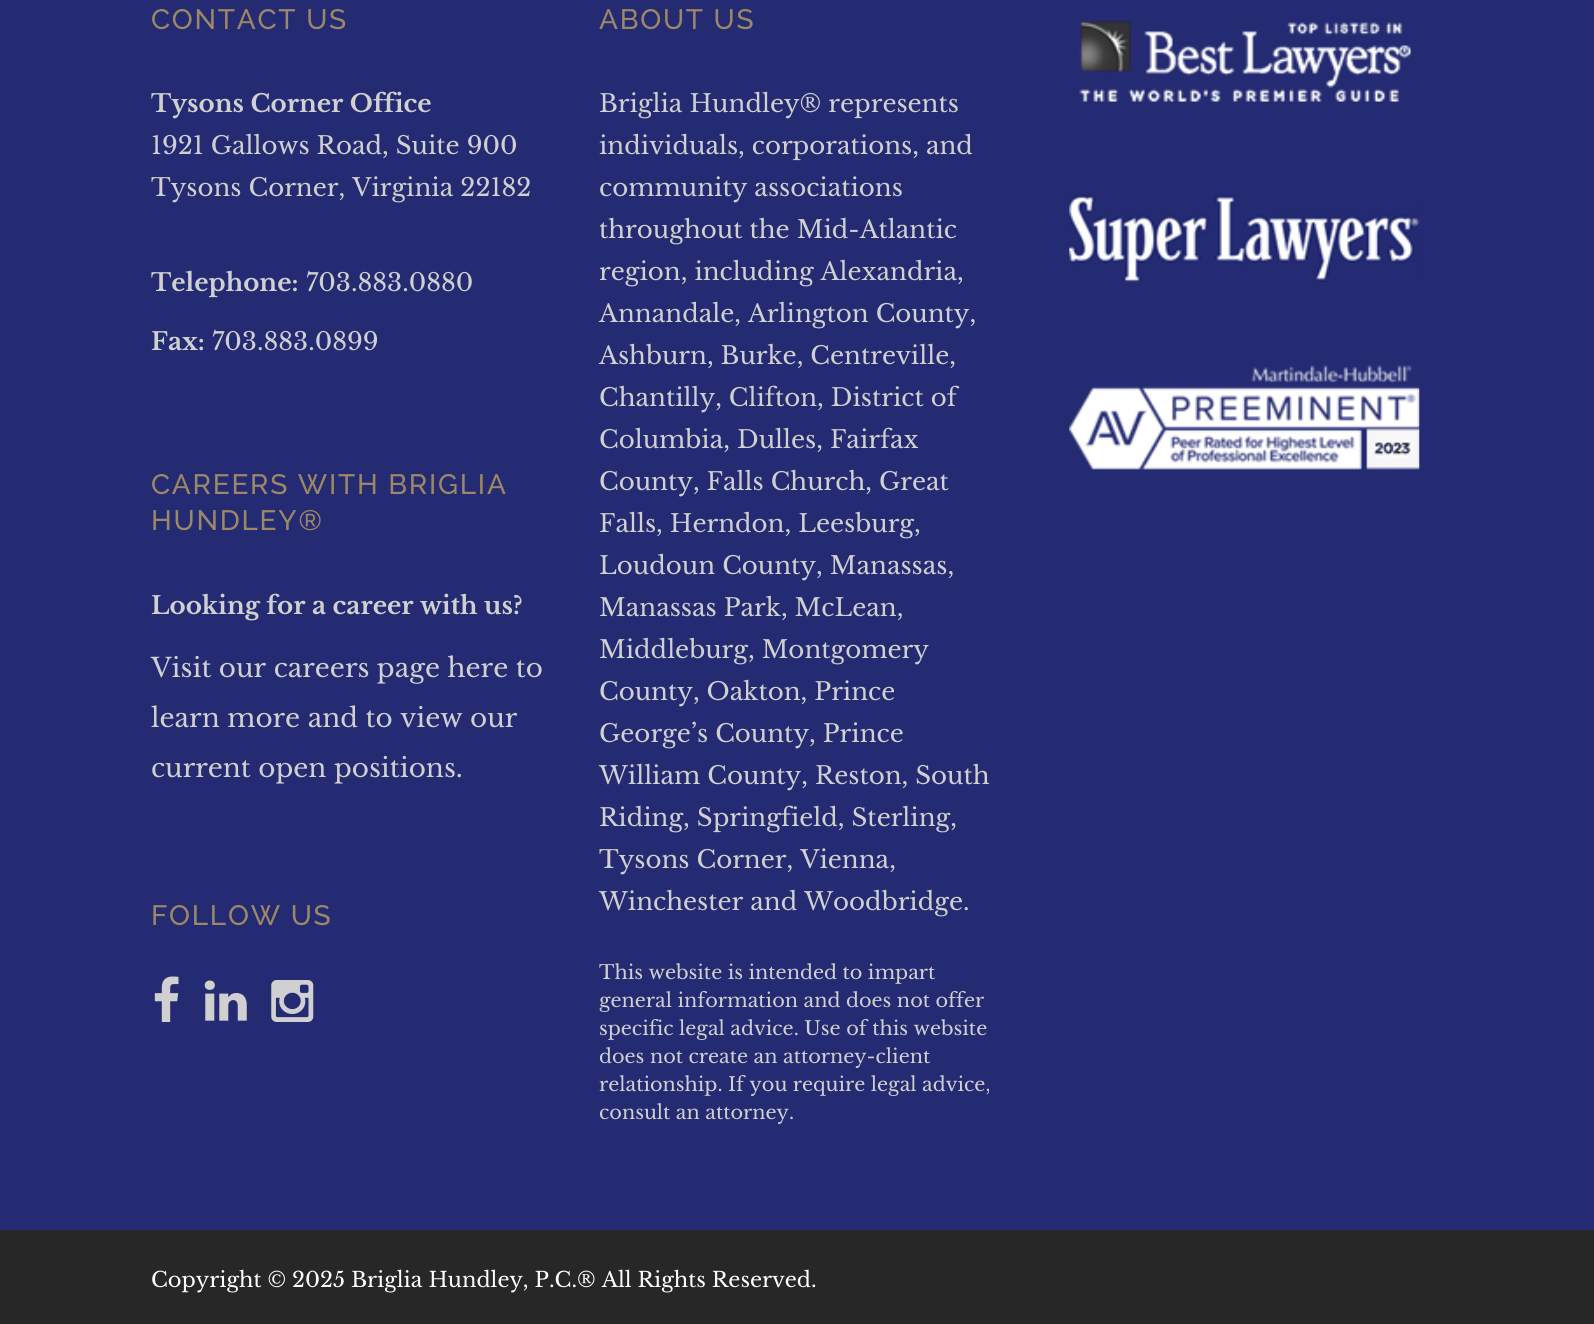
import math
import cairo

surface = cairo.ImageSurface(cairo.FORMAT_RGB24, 1594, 1324)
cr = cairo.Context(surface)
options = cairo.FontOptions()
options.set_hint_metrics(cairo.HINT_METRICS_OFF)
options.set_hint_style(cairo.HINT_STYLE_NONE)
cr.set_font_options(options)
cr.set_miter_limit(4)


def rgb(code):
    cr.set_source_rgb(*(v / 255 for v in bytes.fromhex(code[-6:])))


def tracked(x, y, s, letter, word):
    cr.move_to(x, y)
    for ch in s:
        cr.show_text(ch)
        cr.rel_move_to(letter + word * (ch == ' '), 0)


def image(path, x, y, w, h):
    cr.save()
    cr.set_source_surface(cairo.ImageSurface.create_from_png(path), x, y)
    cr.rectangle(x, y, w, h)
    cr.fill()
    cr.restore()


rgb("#242b72")
cr.paint()
image("img/1.png", 154, 976, 25, 46)
image("img/2.png", 204, 980, 43, 41)
image("img/3.png", 271, 980, 43, 42)
image("img/4.png", 1079, 20, 332, 82)
image("img/5.png", 1069, 194, 351, 88)
image("img/6.png", 1069, 365, 351, 105)
rgb("#272727")
cr.rectangle(0, 1230, 1594, 94)
cr.fill()
cr.select_font_face("Raleway Medium")
cr.set_font_size(28)
rgb("#9c8866")
tracked(151, 29, "CONTACT US", 1.75, 0)
cr.select_font_face("Libre Baskerville", cairo.FONT_SLANT_NORMAL, cairo.FONT_WEIGHT_BOLD)
cr.set_font_size(24.5)
rgb("#d0d0d0")
cr.move_to(151, 112)
cr.show_text("Tysons Corner Office")
cr.select_font_face("Libre Baskerville")
cr.move_to(151, 154)
cr.show_text("1921 Gallows Road, Suite 900")
cr.move_to(151, 196)
cr.show_text("Tysons Corner, Virginia 22182")
cr.select_font_face("Libre Baskerville", cairo.FONT_SLANT_NORMAL, cairo.FONT_WEIGHT_BOLD)
cr.move_to(151, 291)
cr.show_text("Telephone:")
cr.select_font_face("Libre Baskerville")
cr.move_to(306, 291)
cr.show_text("703.883.0880")
cr.select_font_face("Libre Baskerville", cairo.FONT_SLANT_NORMAL, cairo.FONT_WEIGHT_BOLD)
cr.move_to(151, 350)
cr.show_text("Fax:")
cr.select_font_face("Libre Baskerville")
cr.move_to(212, 350)
cr.show_text("703.883.0899")
cr.select_font_face("Raleway Medium")
cr.set_font_size(28)
rgb("#9c8866")
tracked(151, 494, "CAREERS WITH BRIGLIA", 1.75, 0)
tracked(151, 530, "HUNDLEY®", 1.75, 0)
cr.select_font_face("Libre Baskerville", cairo.FONT_SLANT_NORMAL, cairo.FONT_WEIGHT_BOLD)
cr.set_font_size(24.5)
rgb("#d0d0d0")
cr.move_to(151, 614)
cr.show_text("Looking for a career with us?")
cr.select_font_face("Libre Baskerville")
cr.set_font_size(26.25)
for x, y, s in [
    (151, 677, "Visit our careers page here to"),
    (151, 727, "learn more and to view our"),
    (151, 777, "current open positions."),
]:
    cr.move_to(x, y)
    cr.show_text(s)
cr.select_font_face("Raleway Medium")
cr.set_font_size(28)
rgb("#9c8866")
tracked(151, 925, "FOLLOW US", 1.75, 0)
tracked(599, 29, "ABOUT US", 1.75, 0)
cr.select_font_face("Libre Baskerville")
cr.set_font_size(24.5)
rgb("#d0d0d0")
for x, y, s in [
    (599, 112, "Briglia Hundley® represents"),
    (599, 154, "individuals, corporations, and"),
    (599, 196, "community associations"),
    (599, 238, "throughout the Mid-Atlantic"),
    (599, 280, "region, including Alexandria,"),
    (599, 322, "Annandale, Arlington County,"),
    (599, 364, "Ashburn, Burke, Centreville,"),
    (599, 406, "Chantilly, Clifton, District of"),
    (599, 448, "Columbia, Dulles, Fairfax"),
    (599, 490, "County, Falls Church, Great"),
    (599, 532, "Falls, Herndon, Leesburg,"),
    (599, 574, "Loudoun County, Manassas,"),
    (599, 616, "Manassas Park, McLean,"),
    (599, 658, "Middleburg, Montgomery"),
    (599, 700, "County, Oakton, Prince"),
    (599, 742, "George’s County, Prince"),
    (599, 784, "William County, Reston, South"),
    (599, 826, "Riding, Springfield, Sterling,"),
    (599, 868, "Tysons Corner, Vienna,"),
    (599, 910, "Winchester and Woodbridge."),
]:
    cr.move_to(x, y)
    cr.show_text(s)
cr.set_font_size(19.25)
for x, y, s in [
    (599, 979, "This website is intended to impart"),
    (599, 1007, "general information and does not offer"),
    (599, 1035, "specific legal advice. Use of this website"),
    (599, 1063, "does not create an attorney-client"),
    (599, 1091, "relationship. If you require legal advice,"),
    (599, 1119, "consult an attorney."),
]:
    cr.move_to(x, y)
    cr.show_text(s)
cr.set_font_size(21)
rgb("#ffffff")
cr.move_to(151, 1287)
cr.show_text("Copyright © 2025 Briglia Hundley, P.C.® All Rights Reserved.")
surface.write_to_png("page.png")
